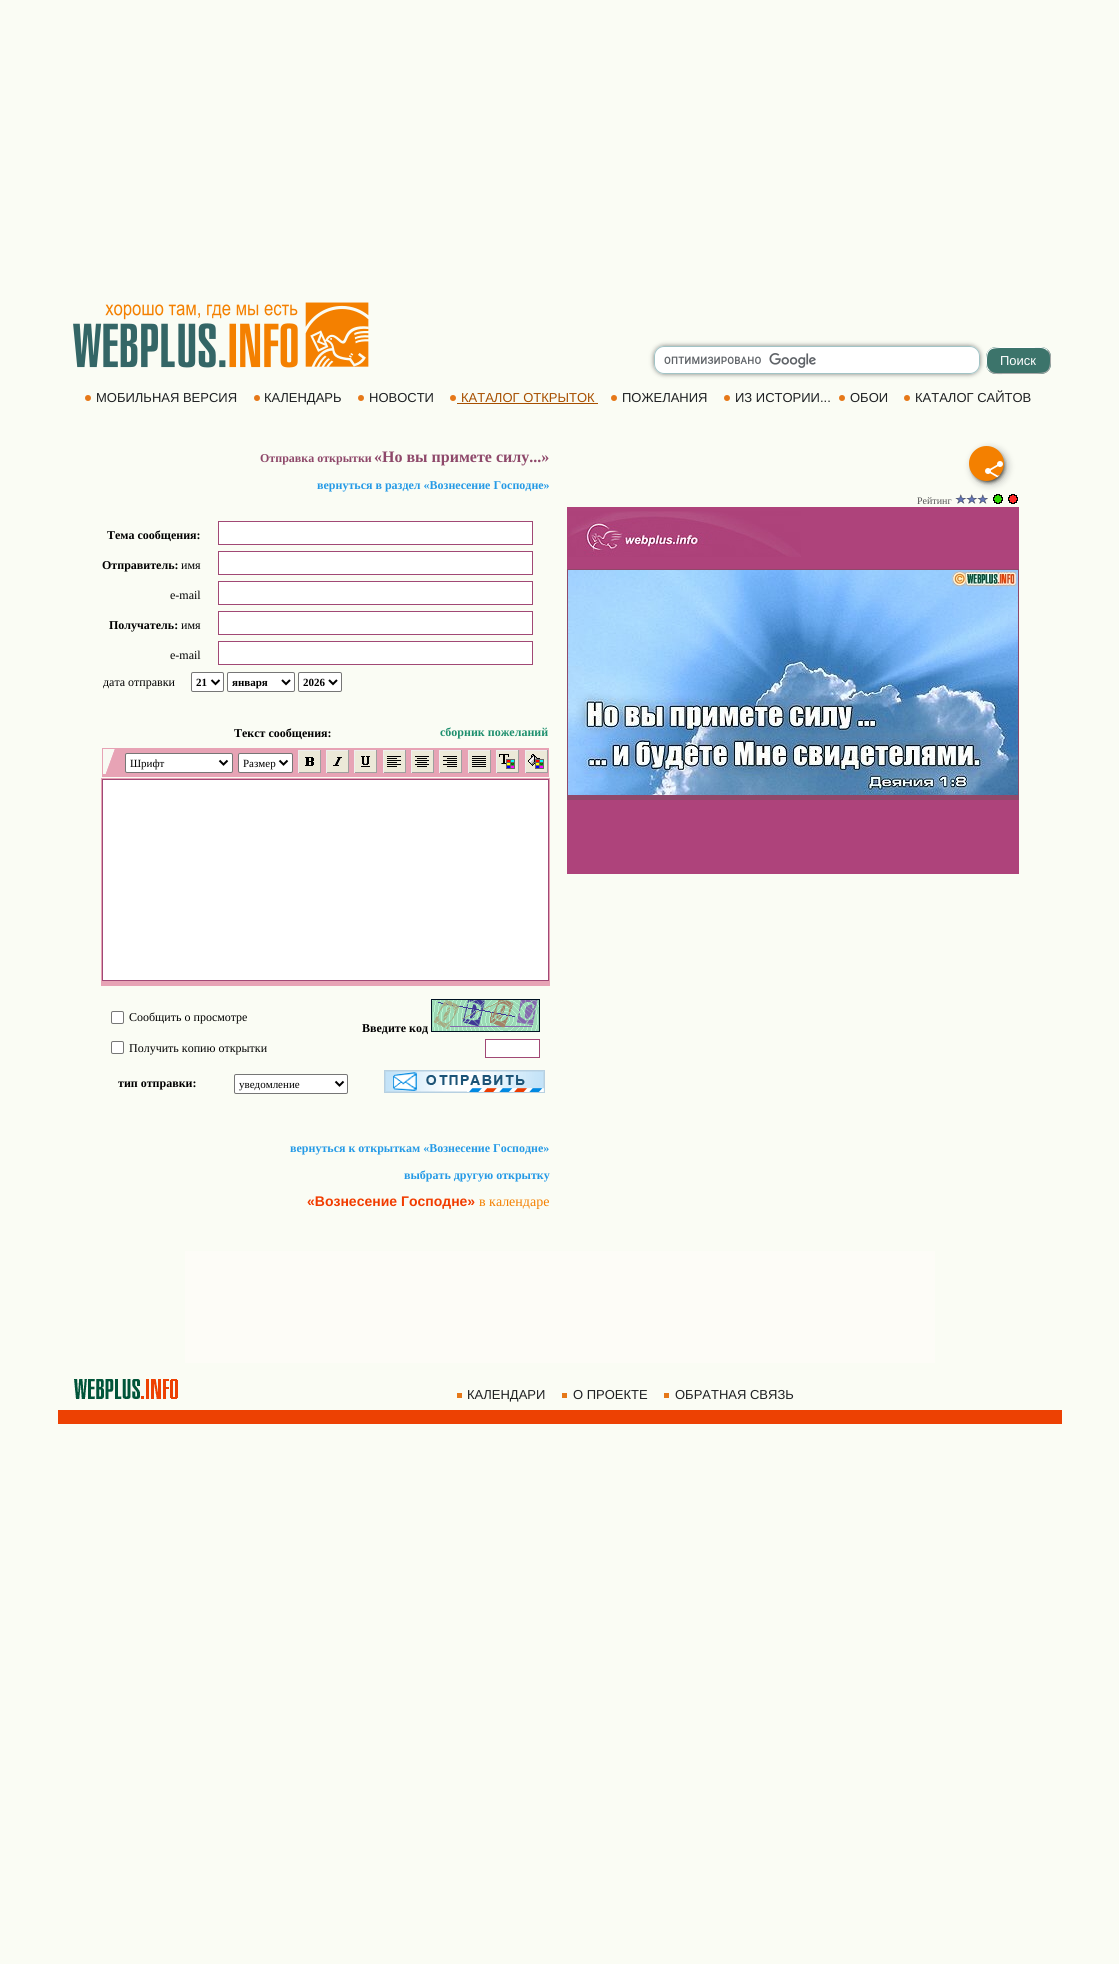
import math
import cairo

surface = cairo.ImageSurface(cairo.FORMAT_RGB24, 1119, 1964)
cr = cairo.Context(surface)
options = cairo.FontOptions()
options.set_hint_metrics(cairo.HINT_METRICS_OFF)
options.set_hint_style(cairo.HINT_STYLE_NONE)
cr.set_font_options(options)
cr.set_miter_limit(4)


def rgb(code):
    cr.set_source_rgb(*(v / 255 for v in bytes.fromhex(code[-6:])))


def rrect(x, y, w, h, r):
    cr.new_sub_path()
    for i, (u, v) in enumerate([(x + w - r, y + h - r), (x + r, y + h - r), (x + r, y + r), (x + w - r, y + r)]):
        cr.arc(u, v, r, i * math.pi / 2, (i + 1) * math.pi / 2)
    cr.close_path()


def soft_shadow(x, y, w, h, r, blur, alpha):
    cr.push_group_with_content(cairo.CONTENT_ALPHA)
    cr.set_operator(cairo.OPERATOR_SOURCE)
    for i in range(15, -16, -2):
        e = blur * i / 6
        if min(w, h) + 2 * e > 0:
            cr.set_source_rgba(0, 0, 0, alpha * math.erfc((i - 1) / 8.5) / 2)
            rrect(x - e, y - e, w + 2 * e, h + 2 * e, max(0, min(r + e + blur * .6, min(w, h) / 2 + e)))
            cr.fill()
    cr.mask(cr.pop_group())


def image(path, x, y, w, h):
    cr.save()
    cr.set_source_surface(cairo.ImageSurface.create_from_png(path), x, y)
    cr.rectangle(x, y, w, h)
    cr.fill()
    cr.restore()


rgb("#fafcf4")
cr.paint()
image("img/1.png", 73, 302, 296, 66)
rgb("#000000")
soft_shadow(654, 346, 326, 28, 10, 2.5, 0.5)
rgb("#ffffff")
rrect(654, 346, 326, 28, 10)
cr.fill()
image("img/2.png", 664, 353, 152, 15)
rrect(654.5, 346.5, 325, 27, 9.5)
rgb("#a1c3c5")
cr.set_line_width(1)
cr.stroke()
rgb("#3c746b")
rrect(986, 347, 65, 27, 10)
cr.fill()
cr.new_path()
cr.move_to(1047.5, 350.5)
cr.curve_to(1051, 353.5, 1050.5, 357, 1050.5, 361)
cr.curve_to(1050.5, 373.5, 1044.5, 373.5, 1033.5, 373.5)
cr.line_to(1003.5, 373.5)
cr.curve_to(998.5, 373.5, 993, 374.5, 989.5, 370.5)
rgb("#aaaaaa")
cr.stroke()
cr.new_path()
cr.move_to(989.5, 370.5)
cr.curve_to(986, 367.5, 986.5, 364, 986.5, 360)
cr.curve_to(986.5, 347.5, 992.5, 347.5, 1003.5, 347.5)
cr.line_to(1033.5, 347.5)
cr.curve_to(1038.5, 347.5, 1044, 346.5, 1047.5, 350.5)
rgb("#ffffff")
cr.stroke()
rgb("#e67818")
cr.arc(88, 398, 3, 0, 2 * math.pi)
cr.fill()
cr.arc(257, 398, 3, 0, 2 * math.pi)
cr.fill()
cr.arc(361, 398, 3, 0, 2 * math.pi)
cr.fill()
cr.arc(453, 398, 3, 0, 2 * math.pi)
cr.fill()
rgb("#a74f00")
cr.rectangle(457, 403, 141, 1)
cr.fill()
rgb("#e67818")
cr.arc(614, 398, 3, 0, 2 * math.pi)
cr.fill()
cr.arc(727, 398, 3, 0, 2 * math.pi)
cr.fill()
cr.arc(842, 398, 3, 0, 2 * math.pi)
cr.fill()
cr.arc(907, 398, 3, 0, 2 * math.pi)
cr.fill()
rgb("#ffffff")
cr.rectangle(218.5, 521.5, 314, 23)
cr.fill_preserve()
rgb("#a14875")
cr.stroke()
rgb("#ffffff")
cr.rectangle(218.5, 551.5, 314, 23)
cr.fill_preserve()
rgb("#a14875")
cr.stroke()
rgb("#ffffff")
cr.rectangle(218.5, 581.5, 314, 23)
cr.fill_preserve()
rgb("#a14875")
cr.stroke()
rgb("#ffffff")
cr.rectangle(218.5, 611.5, 314, 23)
cr.fill_preserve()
rgb("#a14875")
cr.stroke()
rgb("#ffffff")
cr.rectangle(218.5, 641.5, 314, 23)
cr.fill_preserve()
rgb("#a14875")
cr.stroke()
rgb("#ffffff")
rrect(191.5, 672.5, 32, 19, 1.5)
cr.fill_preserve()
rgb("#767676")
cr.stroke()
cr.new_path()
cr.move_to(211.5, 680)
cr.line_to(215.5, 684)
cr.line_to(219.5, 680)
rgb("#000000")
cr.set_line_width(2)
cr.stroke()
rgb("#ffffff")
rrect(227.5, 672.5, 67, 19, 1.5)
cr.fill_preserve()
rgb("#767676")
cr.set_line_width(1)
cr.stroke()
cr.new_path()
cr.move_to(282, 680)
cr.line_to(286, 684)
cr.line_to(290, 680)
rgb("#000000")
cr.set_line_width(2)
cr.stroke()
rgb("#ffffff")
rrect(298.5, 672.5, 43, 19, 1.5)
cr.fill_preserve()
rgb("#767676")
cr.set_line_width(1)
cr.stroke()
cr.new_path()
cr.move_to(329, 680)
cr.line_to(333, 684)
cr.line_to(337, 680)
rgb("#000000")
cr.set_line_width(2)
cr.stroke()
rgb("#e7a3b5")
cr.rectangle(102, 748, 447, 29)
cr.fill()
image("img/3.png", 103, 749, 12, 25)
rgb("#ffffff")
rrect(125.5, 753.5, 107, 19, 1.5)
cr.fill_preserve()
rgb("#767676")
cr.set_line_width(1)
cr.stroke()
cr.new_path()
cr.move_to(219.5, 760.5)
cr.line_to(223.5, 764.5)
cr.line_to(227.5, 760.5)
rgb("#000000")
cr.set_line_width(2)
cr.stroke()
rgb("#ffffff")
rrect(238.5, 753.5, 54, 19, 1.5)
cr.fill_preserve()
rgb("#767676")
cr.set_line_width(1)
cr.stroke()
cr.new_path()
cr.move_to(279.5, 760.5)
cr.line_to(283.5, 764.5)
cr.line_to(287.5, 760.5)
rgb("#000000")
cr.set_line_width(2)
cr.stroke()
for x, y, w, h, color in [
    (298, 750, 23, 1, "#eeeeee"),
    (320, 750, 1, 23, "#9f9f9f"),
    (298, 772, 23, 1, "#9f9f9f"),
    (298, 750, 1, 23, "#eeeeee"),
    (299, 751, 21, 21, "#ece9d8"),
]:
    rgb(color)
    cr.rectangle(x, y, w, h)
    cr.fill()
image("img/4.png", 305, 757, 9, 9)
for x, y, w, h, color in [
    (326, 750, 23, 1, "#eeeeee"),
    (348, 750, 1, 23, "#9f9f9f"),
    (326, 772, 23, 1, "#9f9f9f"),
    (326, 750, 1, 23, "#eeeeee"),
    (327, 751, 21, 21, "#ece9d8"),
]:
    rgb(color)
    cr.rectangle(x, y, w, h)
    cr.fill()
image("img/5.png", 333, 757, 9, 9)
for x, y, w, h, color in [
    (354, 750, 23, 1, "#eeeeee"),
    (376, 750, 1, 23, "#9f9f9f"),
    (354, 772, 23, 1, "#9f9f9f"),
    (354, 750, 1, 23, "#eeeeee"),
    (355, 751, 21, 21, "#ece9d8"),
]:
    rgb(color)
    cr.rectangle(x, y, w, h)
    cr.fill()
image("img/6.png", 361, 756, 9, 11)
for x, y, w, h, color in [
    (383, 750, 23, 1, "#eeeeee"),
    (405, 750, 1, 23, "#9f9f9f"),
    (383, 772, 23, 1, "#9f9f9f"),
    (383, 750, 1, 23, "#eeeeee"),
    (384, 751, 21, 21, "#ece9d8"),
]:
    rgb(color)
    cr.rectangle(x, y, w, h)
    cr.fill()
image("img/7.png", 387, 756, 14, 11)
for x, y, w, h, color in [
    (411, 750, 23, 1, "#eeeeee"),
    (433, 750, 1, 23, "#9f9f9f"),
    (411, 772, 23, 1, "#9f9f9f"),
    (411, 750, 1, 23, "#eeeeee"),
    (412, 751, 21, 21, "#ece9d8"),
]:
    rgb(color)
    cr.rectangle(x, y, w, h)
    cr.fill()
image("img/8.png", 415, 756, 14, 11)
for x, y, w, h, color in [
    (439, 750, 23, 1, "#eeeeee"),
    (461, 750, 1, 23, "#9f9f9f"),
    (439, 772, 23, 1, "#9f9f9f"),
    (439, 750, 1, 23, "#eeeeee"),
    (440, 751, 21, 21, "#ece9d8"),
]:
    rgb(color)
    cr.rectangle(x, y, w, h)
    cr.fill()
image("img/9.png", 443, 756, 14, 11)
for x, y, w, h, color in [
    (468, 750, 23, 1, "#eeeeee"),
    (490, 750, 1, 23, "#9f9f9f"),
    (468, 772, 23, 1, "#9f9f9f"),
    (468, 750, 1, 23, "#eeeeee"),
    (469, 751, 21, 21, "#ece9d8"),
]:
    rgb(color)
    cr.rectangle(x, y, w, h)
    cr.fill()
image("img/10.png", 472, 756, 14, 11)
for x, y, w, h, color in [
    (496, 750, 23, 1, "#eeeeee"),
    (518, 750, 1, 23, "#9f9f9f"),
    (496, 772, 23, 1, "#9f9f9f"),
    (496, 750, 1, 23, "#eeeeee"),
    (497, 751, 21, 21, "#ece9d8"),
]:
    rgb(color)
    cr.rectangle(x, y, w, h)
    cr.fill()
image("img/11.png", 499, 754, 16, 15)
for x, y, w, h, color in [
    (525, 750, 23, 1, "#eeeeee"),
    (547, 750, 1, 23, "#9f9f9f"),
    (525, 772, 23, 1, "#9f9f9f"),
    (525, 750, 1, 23, "#eeeeee"),
    (526, 751, 21, 21, "#ece9d8"),
]:
    rgb(color)
    cr.rectangle(x, y, w, h)
    cr.fill()
image("img/12.png", 528, 754, 16, 15)
rgb("#e7a3b5")
cr.rectangle(101, 778, 449, 208)
cr.fill()
rgb("#ffffff")
cr.rectangle(102.5, 779.5, 446, 201)
cr.fill_preserve()
rgb("#a14875")
cr.set_line_width(1)
cr.stroke()
rgb("#ffffff")
rrect(111.5, 1011.5, 12, 12, 1.5)
cr.fill_preserve()
rgb("#767676")
cr.stroke()
cr.rectangle(431.5, 999.5, 108, 32)
rgb("#001122")
cr.stroke()
image("img/13.png", 432, 1000, 107, 31)
rgb("#ffffff")
rrect(111.5, 1041.5, 12, 12, 1.5)
cr.fill_preserve()
rgb("#767676")
cr.stroke()
rgb("#ffffff")
cr.rectangle(485.5, 1039.5, 54, 18)
cr.fill_preserve()
rgb("#a14875")
cr.stroke()
rgb("#ffffff")
rrect(234.5, 1074.5, 113, 19, 1.5)
cr.fill_preserve()
rgb("#767676")
cr.stroke()
cr.new_path()
cr.move_to(335.5, 1081.5)
cr.line_to(339.5, 1085.5)
cr.line_to(343.5, 1081.5)
rgb("#000000")
cr.set_line_width(2)
cr.stroke()
image("img/14.png", 384, 1070, 161, 23)
image("img/16.png", 955, 494, 11, 10)
image("img/16.png", 966, 494, 11, 10)
image("img/16.png", 977, 494, 11, 10)
image("img/17.png", 993, 494, 10, 10)
image("img/18.png", 1008, 494, 10, 10)
rgb("#000000")
soft_shadow(972, 449, 35, 35, 17.5, 4, 0.3)
soft_shadow(974, 452, 28, 28, 14, 2.5, 0.3)
soft_shadow(974, 452, 28, 28, 14, 2.5, 0.3)
soft_shadow(974, 452, 28, 28, 14, 2.5, 0.3)
soft_shadow(974, 452, 28, 28, 14, 2.5, 0.3)
soft_shadow(974, 452, 28, 28, 14, 2.5, 0.3)
soft_shadow(974, 452, 28, 28, 14, 2.5, 0.3)
rgb("#f48000")
cr.arc(986.5, 463.5, 17.5, 0, 2 * math.pi)
cr.fill()
image("img/15.png", 985, 461, 18, 17)
rgb("#ae437b")
cr.rectangle(567, 507, 452, 367)
cr.fill()
image("img/19.png", 568, 511, 233, 46)
rgb("#8f486a")
cr.rectangle(567, 569, 452, 231)
cr.fill()
image("img/20.png", 568, 570, 450, 225)
rgb("#fdfcf7")
cr.rectangle(185, 1251, 750, 112)
cr.fill()
rgb("#ed4103")
cr.rectangle(58, 1410, 1004, 14)
cr.fill()
image("img/21.png", 74, 1379, 104, 20)
for x, y, w, h, color in [
    (457, 1393, 5, 5, "#e67818"),
    (562, 1393, 5, 5, "#e67818"),
    (664, 1393, 5, 5, "#e67818"),
]:
    rgb(color)
    cr.rectangle(x, y, w, h)
    cr.fill()
cr.select_font_face("Liberation Sans")
cr.set_font_size(13)
rgb("#ffffff")
cr.move_to(1000, 365)
cr.show_text("Поиск")
rgb("#1e2022")
for x, y, s in [
    (96, 402, "МОБИЛЬНАЯ ВЕРСИЯ"),
    (264, 402, "КАЛЕНДАРЬ"),
    (369, 402, "НОВОСТИ"),
]:
    cr.move_to(x, y)
    cr.show_text(s)
rgb("#a74f00")
cr.move_to(461, 402)
cr.show_text("КАТАЛОГ ОТКРЫТОК")
rgb("#1e2022")
for x, y, s in [
    (622, 402, "ПОЖЕЛАНИЯ"),
    (735, 402, "ИЗ ИСТОРИИ..."),
    (850, 402, "ОБОИ"),
    (915, 402, "КАТАЛОГ САЙТОВ"),
]:
    cr.move_to(x, y)
    cr.show_text(s)
cr.select_font_face("Liberation Serif", cairo.FONT_SLANT_NORMAL, cairo.FONT_WEIGHT_BOLD)
cr.set_font_size(12)
rgb("#8e486a")
cr.move_to(260, 462)
cr.show_text("Отправка открытки")
cr.set_font_size(16)
cr.move_to(374, 462)
cr.show_text("«Но вы примете силу...»")
cr.set_font_size(12)
rgb("#259ae6")
cr.move_to(317, 489)
cr.show_text("вернуться в раздел «Вознесение Господне»")
rgb("#000000")
cr.move_to(107, 539)
cr.show_text("Тема сообщения:")
cr.move_to(102, 569)
cr.show_text("Отправитель:")
cr.select_font_face("Liberation Serif")
cr.move_to(181, 569)
cr.show_text("имя")
cr.move_to(170, 599)
cr.show_text("e-mail")
cr.select_font_face("Liberation Serif", cairo.FONT_SLANT_NORMAL, cairo.FONT_WEIGHT_BOLD)
cr.move_to(109, 629)
cr.show_text("Получатель:")
cr.select_font_face("Liberation Serif")
for x, y, s in [
    (181, 629, "имя"),
    (170, 659, "e-mail"),
    (103, 686, "дата отправки"),
]:
    cr.move_to(x, y)
    cr.show_text(s)
cr.select_font_face("Liberation Serif", cairo.FONT_SLANT_NORMAL, cairo.FONT_WEIGHT_BOLD)
cr.set_font_size(11)
for x, y, s in [
    (196, 686, "21"),
    (232, 686, "января"),
    (303, 686, "2026"),
]:
    cr.move_to(x, y)
    cr.show_text(s)
cr.set_font_size(12)
cr.move_to(234, 737)
cr.show_text("Tекст сообщения:")
rgb("#1e8f6e")
cr.move_to(440, 736)
cr.show_text("сборник пожеланий")
cr.select_font_face("Liberation Serif")
cr.set_font_size(11)
rgb("#000000")
cr.move_to(130, 767)
cr.show_text("Шрифт")
cr.move_to(243, 767)
cr.show_text("Размер")
cr.set_font_size(12)
cr.move_to(129, 1021)
cr.show_text("Сообщить о просмотре")
cr.select_font_face("Liberation Serif", cairo.FONT_SLANT_NORMAL, cairo.FONT_WEIGHT_BOLD)
cr.move_to(362, 1032)
cr.show_text("Введите код")
cr.select_font_face("Liberation Serif")
cr.move_to(129, 1052)
cr.show_text("Получить копию открытки")
cr.select_font_face("Liberation Serif", cairo.FONT_SLANT_NORMAL, cairo.FONT_WEIGHT_BOLD)
cr.move_to(118, 1087)
cr.show_text("тип отправки:")
cr.select_font_face("Liberation Serif")
cr.set_font_size(11)
cr.move_to(239, 1088)
cr.show_text("уведомление")
cr.set_font_size(10)
rgb("#535353")
cr.move_to(917, 504)
cr.show_text("Рейтинг")
cr.select_font_face("Liberation Serif", cairo.FONT_SLANT_NORMAL, cairo.FONT_WEIGHT_BOLD)
cr.set_font_size(12)
rgb("#259ae6")
cr.move_to(290, 1152)
cr.show_text("вернуться к открыткам «Вознесение Господне»")
cr.move_to(404, 1179)
cr.show_text("выбрать другую открытку")
cr.select_font_face("Liberation Sans", cairo.FONT_SLANT_NORMAL, cairo.FONT_WEIGHT_BOLD)
cr.set_font_size(14)
rgb("#f13c00")
cr.move_to(307, 1206)
cr.show_text("«Вознесение Господне»")
cr.select_font_face("Liberation Serif")
rgb("#f48000")
cr.move_to(479, 1206)
cr.show_text("в календаре")
cr.select_font_face("Liberation Sans")
cr.set_font_size(13)
rgb("#1e2022")
for x, y, s in [
    (467, 1399, "КАЛЕНДАРИ"),
    (573, 1399, "О ПРОЕКТЕ"),
    (675, 1399, "ОБРАТНАЯ СВЯЗЬ"),
]:
    cr.move_to(x, y)
    cr.show_text(s)
surface.write_to_png("page.png")
